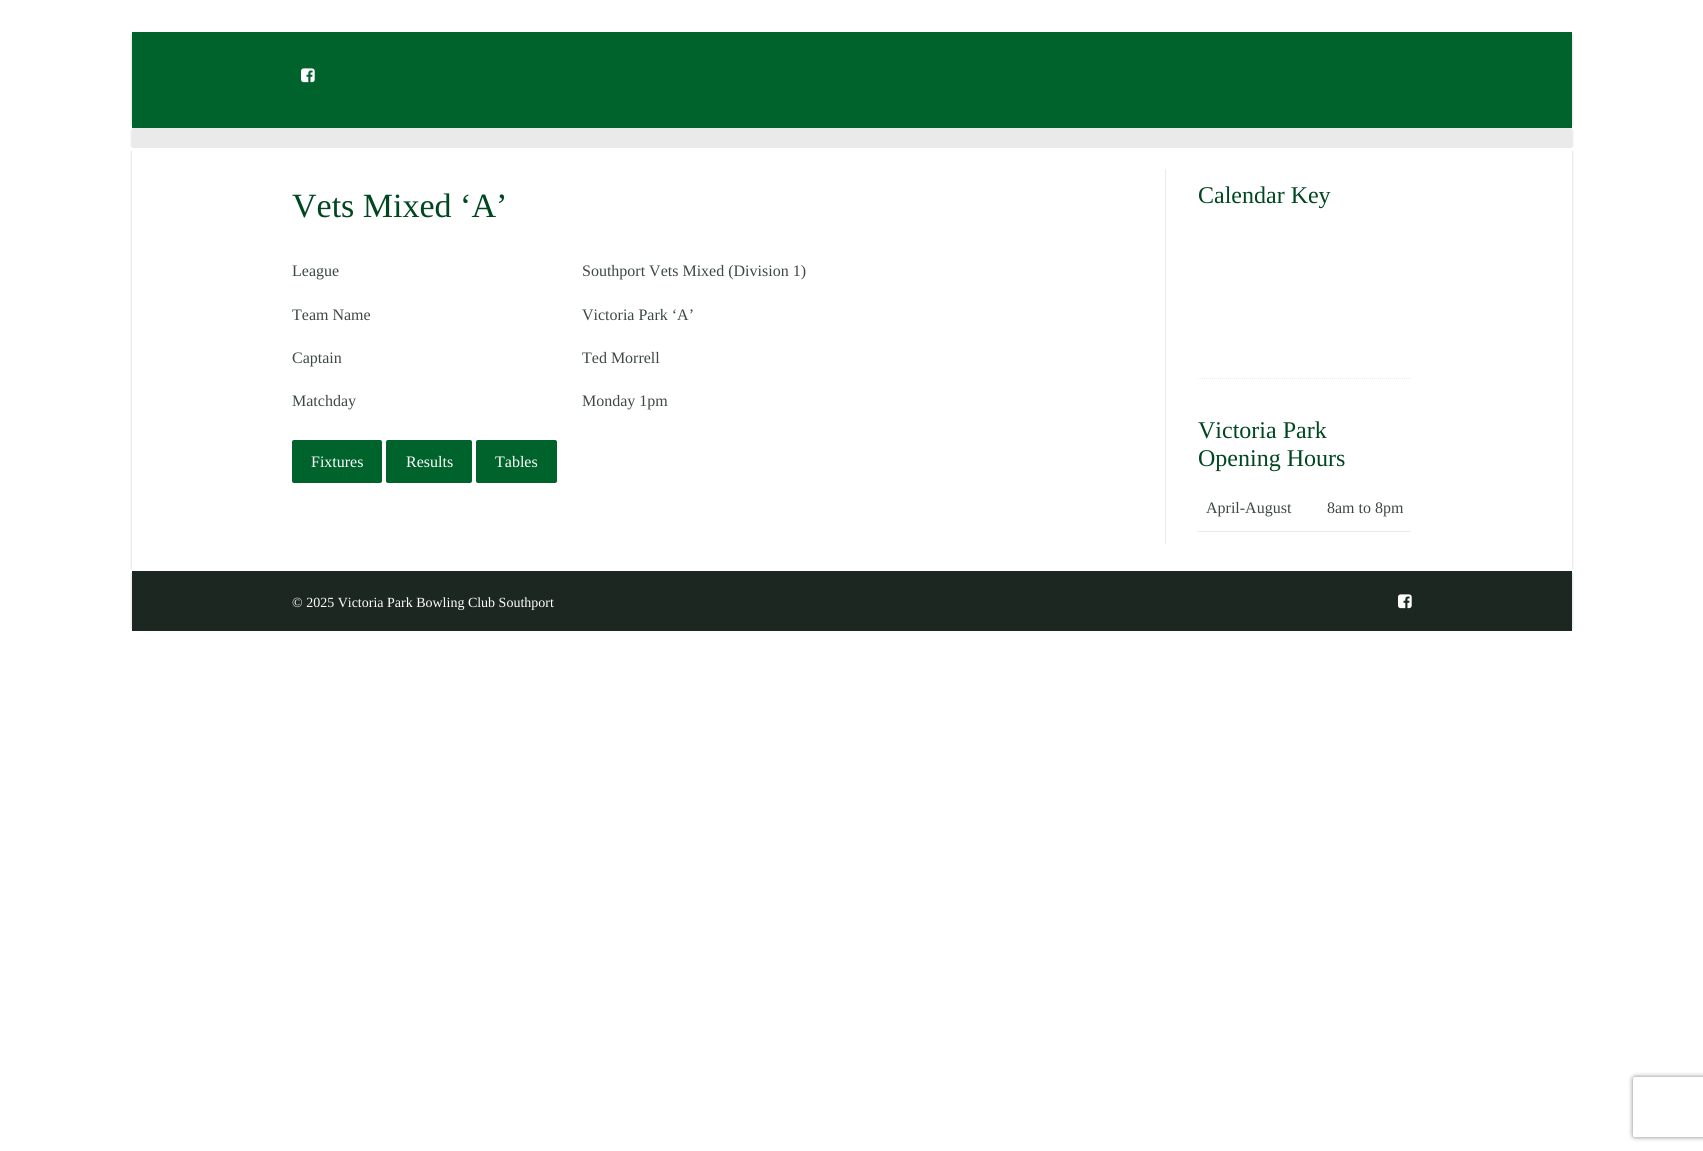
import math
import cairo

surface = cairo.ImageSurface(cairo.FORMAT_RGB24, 1703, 1151)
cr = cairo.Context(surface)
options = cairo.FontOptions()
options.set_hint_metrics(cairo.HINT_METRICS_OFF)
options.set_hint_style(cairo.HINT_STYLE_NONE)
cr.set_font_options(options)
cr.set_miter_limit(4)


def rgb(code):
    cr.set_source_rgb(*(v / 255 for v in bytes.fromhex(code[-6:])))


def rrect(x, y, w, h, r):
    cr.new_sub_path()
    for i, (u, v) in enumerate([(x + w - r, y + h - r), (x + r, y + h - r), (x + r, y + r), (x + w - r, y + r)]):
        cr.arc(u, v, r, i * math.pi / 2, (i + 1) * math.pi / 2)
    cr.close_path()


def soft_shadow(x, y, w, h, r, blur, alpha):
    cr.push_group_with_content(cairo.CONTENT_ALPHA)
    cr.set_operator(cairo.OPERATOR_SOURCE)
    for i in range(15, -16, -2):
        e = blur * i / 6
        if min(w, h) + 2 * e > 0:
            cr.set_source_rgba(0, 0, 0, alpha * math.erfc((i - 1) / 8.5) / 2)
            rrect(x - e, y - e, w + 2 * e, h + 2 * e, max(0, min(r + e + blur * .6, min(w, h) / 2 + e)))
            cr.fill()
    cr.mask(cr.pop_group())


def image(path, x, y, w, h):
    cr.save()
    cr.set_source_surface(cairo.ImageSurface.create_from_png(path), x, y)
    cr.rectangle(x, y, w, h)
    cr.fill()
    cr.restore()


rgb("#ffffff")
cr.paint()
rgb("#00632c")
cr.rectangle(132, 32, 1440, 96)
cr.fill()
cr.save()
cr.rectangle(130, 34, 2, 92)
cr.clip()
rgb("#000000")
soft_shadow(132, 34, 1, 92, 0, 1.5, 0.2)
cr.restore()
image("img/1.png", 301, 68, 14, 15)
cr.save()
cr.rectangle(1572, 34, 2, 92)
cr.clip()
rgb("#000000")
soft_shadow(1571, 34, 1, 92, 0, 1.5, 0.2)
cr.restore()
cr.save()
cr.rectangle(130, 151, 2, 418)
cr.clip()
rgb("#000000")
soft_shadow(132, 151, 1, 418, 0, 1.5, 0.2)
cr.restore()
cr.save()
cr.rectangle(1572, 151, 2, 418)
cr.clip()
rgb("#000000")
soft_shadow(1571, 151, 1, 418, 0, 1.5, 0.2)
cr.restore()
rgb("#eaeaea")
cr.rectangle(132, 128, 1440, 20)
cr.fill()
cr.save()
cr.rectangle(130, 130, 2, 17)
cr.clip()
rgb("#000000")
soft_shadow(132, 130, 1, 17, 0, 1.5, 0.2)
cr.restore()
cr.save()
cr.rectangle(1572, 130, 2, 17)
cr.clip()
rgb("#000000")
soft_shadow(1571, 130, 1, 17, 0, 1.5, 0.2)
cr.restore()
rgb("#00632c")
rrect(292, 440, 90, 43, 2)
cr.fill()
rrect(386, 440, 86, 43, 2)
cr.fill()
rrect(476, 440, 81, 43, 2)
cr.fill()
rgb("#eaeaea")
cr.rectangle(1165, 169, 1, 375)
cr.fill()
cr.new_path()
cr.move_to(1198, 378.5)
cr.line_to(1411, 378.5)
cr.set_line_width(1)
cr.set_dash([1, 1])
cr.stroke()
cr.rectangle(1198, 531, 213, 1)
cr.fill()
rgb("#1c2721")
cr.rectangle(132, 571, 1440, 60)
cr.fill()
cr.save()
cr.rectangle(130, 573, 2, 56)
cr.clip()
rgb("#000000")
soft_shadow(132, 573, 1, 56, 0, 1.5, 0.2)
cr.restore()
image("img/2.png", 1398, 594, 14, 15)
cr.save()
cr.rectangle(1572, 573, 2, 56)
cr.clip()
rgb("#000000")
soft_shadow(1571, 573, 1, 56, 0, 1.5, 0.2)
cr.restore()
cr.save()
cr.set_fill_rule(cairo.FILL_RULE_EVEN_ODD)
cr.new_path()
cr.move_to(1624, 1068)
cr.line_to(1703, 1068)
cr.line_to(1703, 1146)
cr.line_to(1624, 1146)
cr.close_path()
cr.move_to(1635, 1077)
cr.line_to(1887, 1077)
cr.curve_to(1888, 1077, 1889, 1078, 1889, 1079)
cr.line_to(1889, 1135)
cr.curve_to(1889, 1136, 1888, 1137, 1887, 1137)
cr.line_to(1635, 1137)
cr.curve_to(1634, 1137, 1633, 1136, 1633, 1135)
cr.line_to(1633, 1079)
cr.curve_to(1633, 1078, 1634, 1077, 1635, 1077)
cr.close_path()
cr.clip()
rgb("#808080")
soft_shadow(1633, 1077, 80, 60, 2, 2.5, 1)
cr.restore()
cr.select_font_face("Liberation Serif")
cr.set_font_size(34)
rgb("#004720")
cr.move_to(292, 217)
cr.show_text("Vets Mixed ‘A’")
cr.set_font_size(16)
rgb("#3d4942")
for x, y, s in [
    (292, 276, "League"),
    (292, 320, "Team Name"),
    (292, 363, "Captain"),
    (292, 406, "Matchday"),
    (582, 276, "Southport Vets Mixed (Division 1)"),
    (582, 320, "Victoria Park ‘A’"),
    (582, 363, "Ted Morrell"),
    (582, 406, "Monday 1pm"),
]:
    cr.move_to(x, y)
    cr.show_text(s)
rgb("#ffffff")
for x, y, s in [
    (311, 467, "Fixtures"),
    (406, 467, "Results"),
    (495, 467, "Tables"),
]:
    cr.move_to(x, y)
    cr.show_text(s)
cr.set_font_size(24)
rgb("#004720")
for x, y, s in [
    (1198, 203, "Calendar Key"),
    (1198, 438, "Victoria Park"),
    (1198, 466, "Opening Hours"),
]:
    cr.move_to(x, y)
    cr.show_text(s)
cr.set_font_size(16)
rgb("#3d4942")
cr.move_to(1206, 513)
cr.show_text("April-August")
cr.move_to(1327, 513)
cr.show_text("8am to 8pm")
cr.set_font_size(14)
rgb("#ffffff")
cr.move_to(292, 607)
cr.show_text("© 2025 Victoria Park Bowling Club Southport")
surface.write_to_png("page.png")
